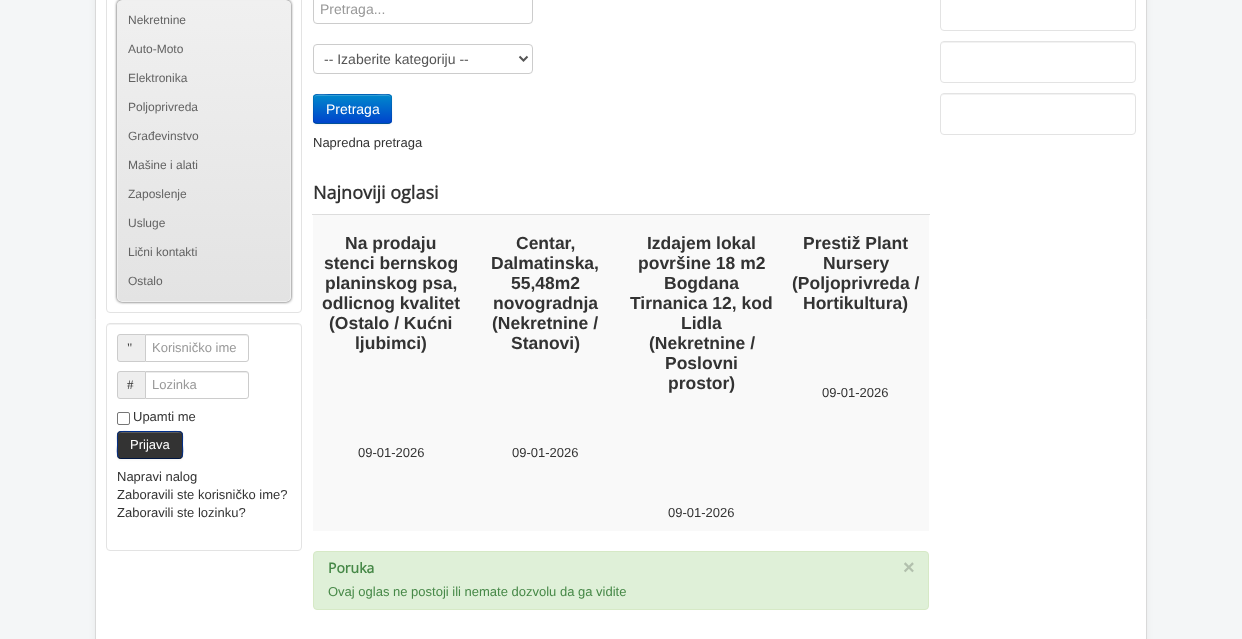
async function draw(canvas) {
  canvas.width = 1242;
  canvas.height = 639;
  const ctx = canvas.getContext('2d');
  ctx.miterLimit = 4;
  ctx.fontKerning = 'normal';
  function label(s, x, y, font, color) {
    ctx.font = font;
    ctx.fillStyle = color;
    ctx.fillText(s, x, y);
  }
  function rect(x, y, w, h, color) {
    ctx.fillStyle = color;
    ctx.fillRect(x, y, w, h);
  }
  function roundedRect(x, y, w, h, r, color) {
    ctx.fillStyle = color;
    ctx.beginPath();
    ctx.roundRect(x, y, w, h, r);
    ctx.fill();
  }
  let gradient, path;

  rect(0, 0, 1242, 639, '#f4f6f7');
  ctx.fillStyle = '#0000000d';
  ctx.filter = 'blur(3px)';
  ctx.beginPath();
  ctx.roundRect(95, -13, 1052, 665, 4);
  ctx.fill();
  ctx.filter = 'none';
  ctx.fillStyle = '#fff';
  ctx.beginPath();
  ctx.rect(95.5, -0.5, 1051, 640);
  ctx.fill();
  ctx.strokeStyle = '#d9d9d9';
  ctx.stroke();
  ctx.beginPath();
  ctx.roundRect(106.5, -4.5, 195, 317, 3.5);
  ctx.strokeStyle = '#e3e3e3';
  ctx.stroke();
  ctx.fillStyle = '#444';
  ctx.filter = 'blur(1.5px)';
  ctx.beginPath();
  ctx.roundRect(117, 0, 174, 302, 5);
  ctx.fill();
  ctx.filter = 'none';
  ctx.save();
  ctx.beginPath();
  ctx.roundRect(117, 0, 174, 302, 5);
  ctx.clip();
  gradient = ctx.createLinearGradient(204, 1, 204, 301);
  gradient.addColorStop(0, '#f0f0f0');
  gradient.addColorStop(1, '#e3e3e3');
  ctx.fillStyle = gradient;
  ctx.fillRect(117, 1, 174, 300);
  ctx.restore();
  ctx.beginPath();
  ctx.roundRect(117.5, 0.5, 173, 301, 4.5);
  ctx.strokeStyle = '#efefef';
  ctx.stroke();
  label('Nekretnine', 128, 24, '12px Liberation Sans', '#636363');
  label('Auto-Moto', 128, 53, '12px Liberation Sans', '#636363');
  label('Elektronika', 128, 82, '12px Liberation Sans', '#636363');
  label('Poljoprivreda', 128, 111, '12px Liberation Sans', '#636363');
  label('Građevinstvo', 128, 140, '12px Liberation Sans', '#636363');
  label('Mašine i alati', 128, 169, '12px Liberation Sans', '#636363');
  label('Zaposlenje', 128, 198, '12px Liberation Sans', '#636363');
  label('Usluge', 128, 227, '12px Liberation Sans', '#636363');
  label('Lični kontakti', 128, 256, '12px Liberation Sans', '#636363');
  label('Ostalo', 128, 285, '12px Liberation Sans', '#636363');
  ctx.fillStyle = '#f2f2f2';
  path = new Path2D('M110 325H298C300 325 301 326 301 328C301 326 300 324 298 324H110C108 324 107 326 107 328C107 326 108 325 110 325Z');
  ctx.fill(path);
  ctx.beginPath();
  ctx.roundRect(106.5, 323.5, 195, 227, 3.5);
  ctx.strokeStyle = '#e3e3e3';
  ctx.stroke();
  ctx.fillStyle = '#eee';
  ctx.beginPath();
  ctx.roundRect(117.5, 334.5, 28, 27, [2.5, 0, 0, 2.5]);
  ctx.fill();
  ctx.strokeStyle = '#ccc';
  ctx.stroke();
  label('"', 127, 352, '13px Liberation Serif', '#333');
  ctx.fillStyle = '#fff';
  ctx.beginPath();
  ctx.roundRect(145, 334, 104, 28, [0, 3, 3, 0]);
  ctx.fill();
  ctx.fillStyle = '#ececec';
  path = new Path2D('M146 336H246C247 336 248 337 248 338C248 337 248 335 246 335H146Z');
  ctx.fill(path);
  ctx.beginPath();
  ctx.roundRect(145.5, 334.5, 103, 27, [0, 2.5, 2.5, 0]);
  ctx.stroke();
  label('Korisničko ime', 152, 352, '13px Liberation Sans', '#999');
  ctx.fillStyle = '#eee';
  ctx.beginPath();
  ctx.roundRect(117.5, 371.5, 28, 27, [2.5, 0, 0, 2.5]);
  ctx.fill();
  ctx.stroke();
  label('#', 127, 389, '13px Liberation Serif', '#333');
  ctx.fillStyle = '#fff';
  ctx.beginPath();
  ctx.roundRect(145, 371, 104, 28, [0, 3, 3, 0]);
  ctx.fill();
  ctx.fillStyle = '#ececec';
  path = new Path2D('M146 373H246C247 373 248 374 248 375C248 374 248 372 246 372H146Z');
  ctx.fill(path);
  ctx.beginPath();
  ctx.roundRect(145.5, 371.5, 103, 27, [0, 2.5, 2.5, 0]);
  ctx.stroke();
  label('Lozinka', 152, 389, '13px Liberation Sans', '#999');
  ctx.beginPath();
  ctx.roundRect(117.5, 412.5, 12, 12, 1.5);
  ctx.strokeStyle = '#767676';
  ctx.stroke();
  label('Upamti me', 133, 421, '13px Liberation Sans', '#333');
  ctx.fillStyle = '#0000000d';
  ctx.filter = 'blur(1px)';
  ctx.beginPath();
  ctx.roundRect(117, 432, 66, 28, 4);
  ctx.fill();
  ctx.filter = 'none';
  roundedRect(117, 431, 66, 28, 4, '#333');
  ctx.fillStyle = '#5c5c5c';
  path = new Path2D('M121 433H179C181 433 182 434 182 436C182 430 174 432 169 432H131C126 432 118 430 118 436C118 434 119 433 121 433Z');
  ctx.fill(path);
  path = new Path2D('M181.5 457.5L179.5 458.5H120.5L118.5 457.5');
  ctx.strokeStyle = '#001641';
  ctx.stroke(path);
  path = new Path2D('M118.5 457.5C116.5 455 117.5 447.5 117.5 445C117.5 430 115.5 431.5 130.5 431.5H169.5C184.5 431.5 182.5 430 182.5 445C182.5 447.5 183.5 455 181.5 457.5');
  ctx.strokeStyle = '#002f8d';
  ctx.stroke(path);
  label('Prijava', 130, 449, '13px Liberation Sans', '#fff');
  label('Napravi nalog', 117, 481, '13px Liberation Sans', '#333');
  label('Zaboravili ste korisničko ime?', 117, 499, '13px Liberation Sans', '#333');
  label('Zaboravili ste lozinku?', 117, 517, '13px Liberation Sans', '#333');
  ctx.beginPath();
  ctx.roundRect(313.5, -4.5, 219, 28, 3.5);
  ctx.strokeStyle = '#ccc';
  ctx.stroke();
  label('Pretraga...', 320, 14, '14px Liberation Sans', '#999');
  ctx.beginPath();
  ctx.roundRect(313.5, 44.5, 219, 29, 3.5);
  ctx.stroke();
  path = new Path2D('M519.5 56.5L523.5 60.5L527.5 56.5');
  ctx.strokeStyle = '#555';
  ctx.lineWidth = 2;
  ctx.stroke(path);
  label('-- Izaberite kategoriju --', 324, 64, '14px Liberation Sans', '#555');
  ctx.fillStyle = '#0000000d';
  ctx.filter = 'blur(1px)';
  ctx.beginPath();
  ctx.roundRect(313, 95, 79, 30, 4);
  ctx.fill();
  ctx.filter = 'none';
  roundedRect(313, 94, 79, 30, 4, '#006dcc');
  ctx.save();
  ctx.beginPath();
  ctx.roundRect(313, 94, 79, 30, 4);
  ctx.clip();
  gradient = ctx.createLinearGradient(353, 95, 353, 123);
  gradient.addColorStop(0, '#08c');
  gradient.addColorStop(1, '#04c');
  ctx.fillStyle = gradient;
  ctx.fillRect(313, 95, 79, 28);
  ctx.restore();
  ctx.fillStyle = '#ffffff33';
  path = new Path2D('M317 96H388C390 96 391 97 391 99C391 92 380 95 376 95H329C325 95 314 92 314 99C314 97 315 96 317 96Z');
  ctx.fill(path);
  path = new Path2D('M390.5 122.5C390 123 389 123.5 388 123.5H317C316 123.5 315 123 314.5 122.5');
  ctx.strokeStyle = '#00000040';
  ctx.lineWidth = 1;
  ctx.stroke(path);
  path = new Path2D('M314.5 122.5C312.5 120.5 313.5 112 313.5 109C313.5 92 311 94.5 329 94.5H376C394 94.5 391.5 92 391.5 109C391.5 112 392.5 120.5 390.5 122.5');
  ctx.strokeStyle = '#0000001a';
  ctx.stroke(path);
  label('Pretraga', 326, 114, '14px Liberation Sans', '#fff');
  label('Napredna pretraga', 313, 147, '13px Liberation Sans', '#333');
  label('Najnoviji oglasi', 313, 199, 'bold 18px Open Sans', '#333');
  rect(313, 215, 616, 316, '#f9f9f9');
  label('Na prodaju', 345, 249, 'bold 17.5px Liberation Sans', '#333');
  label('stenci bernskog', 324, 269, 'bold 17.5px Liberation Sans', '#333');
  label('planinskog psa,', 325, 289, 'bold 17.5px Liberation Sans', '#333');
  label('odlicnog kvalitet', 322, 309, 'bold 17.5px Liberation Sans', '#333');
  label('(Ostalo / Kućni', 329, 329, 'bold 17.5px Liberation Sans', '#333');
  label('ljubimci)', 355, 349, 'bold 17.5px Liberation Sans', '#333');
  label('09-01-2026', 358, 457, '13px Liberation Sans', '#333');
  label('Centar,', 516, 249, 'bold 17.5px Liberation Sans', '#333');
  label('Dalmatinska,', 491, 269, 'bold 17.5px Liberation Sans', '#333');
  label('55,48m2', 511, 289, 'bold 17.5px Liberation Sans', '#333');
  label('novogradnja', 493, 309, 'bold 17.5px Liberation Sans', '#333');
  label('(Nekretnine /', 492, 329, 'bold 17.5px Liberation Sans', '#333');
  label('Stanovi)', 511, 349, 'bold 17.5px Liberation Sans', '#333');
  label('09-01-2026', 512, 457, '13px Liberation Sans', '#333');
  label('Izdajem lokal', 647, 249, 'bold 17.5px Liberation Sans', '#333');
  label('površine 18 m2', 638, 269, 'bold 17.5px Liberation Sans', '#333');
  label('Bogdana', 664, 289, 'bold 17.5px Liberation Sans', '#333');
  label('Tirnanica 12, kod', 630, 309, 'bold 17.5px Liberation Sans', '#333');
  label('Lidla', 681, 329, 'bold 17.5px Liberation Sans', '#333');
  label('(Nekretnine /', 649, 349, 'bold 17.5px Liberation Sans', '#333');
  label('Poslovni', 665, 369, 'bold 17.5px Liberation Sans', '#333');
  label('prostor)', 668, 389, 'bold 17.5px Liberation Sans', '#333');
  label('09-01-2026', 668, 517, '13px Liberation Sans', '#333');
  rect(312, 214, 618, 1, '#ddd');
  label('Prestiž Plant', 803, 249, 'bold 17.5px Liberation Sans', '#333');
  label('Nursery', 823, 269, 'bold 17.5px Liberation Sans', '#333');
  label('(Poljoprivreda /', 792, 289, 'bold 17.5px Liberation Sans', '#333');
  label('Hortikultura)', 803, 309, 'bold 17.5px Liberation Sans', '#333');
  label('09-01-2026', 822, 397, '13px Liberation Sans', '#333');
  ctx.fillStyle = '#dff0d8';
  ctx.beginPath();
  ctx.roundRect(313.5, 551.5, 615, 58, 3.5);
  ctx.fill();
  ctx.strokeStyle = '#d6e9c6';
  ctx.stroke();
  label('Poruka', 328, 573, 'bold 14px Open Sans', '#468847');
  label('×', 903, 574, 'bold 20px Liberation Sans', '#b2c0ad');
  label('Ovaj oglas ne postoji ili nemate dozvolu da ga vidite', 328, 596, '13px Liberation Sans', '#468847');
  ctx.beginPath();
  ctx.roundRect(940.5, -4.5, 195, 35, 3.5);
  ctx.strokeStyle = '#e3e3e3';
  ctx.stroke();
  ctx.fillStyle = '#f2f2f2';
  path = new Path2D('M944 43H1132C1134 43 1135 44 1135 46C1135 44 1134 42 1132 42H944C942 42 941 44 941 46C941 44 942 43 944 43Z');
  ctx.fill(path);
  ctx.beginPath();
  ctx.roundRect(940.5, 41.5, 195, 41, 3.5);
  ctx.stroke();
  path = new Path2D('M944 95H1132C1134 95 1135 96 1135 98C1135 96 1134 94 1132 94H944C942 94 941 96 941 98C941 96 942 95 944 95Z');
  ctx.fill(path);
  ctx.beginPath();
  ctx.roundRect(940.5, 93.5, 195, 41, 3.5);
  ctx.stroke();
}

draw(document.querySelector('canvas'));
